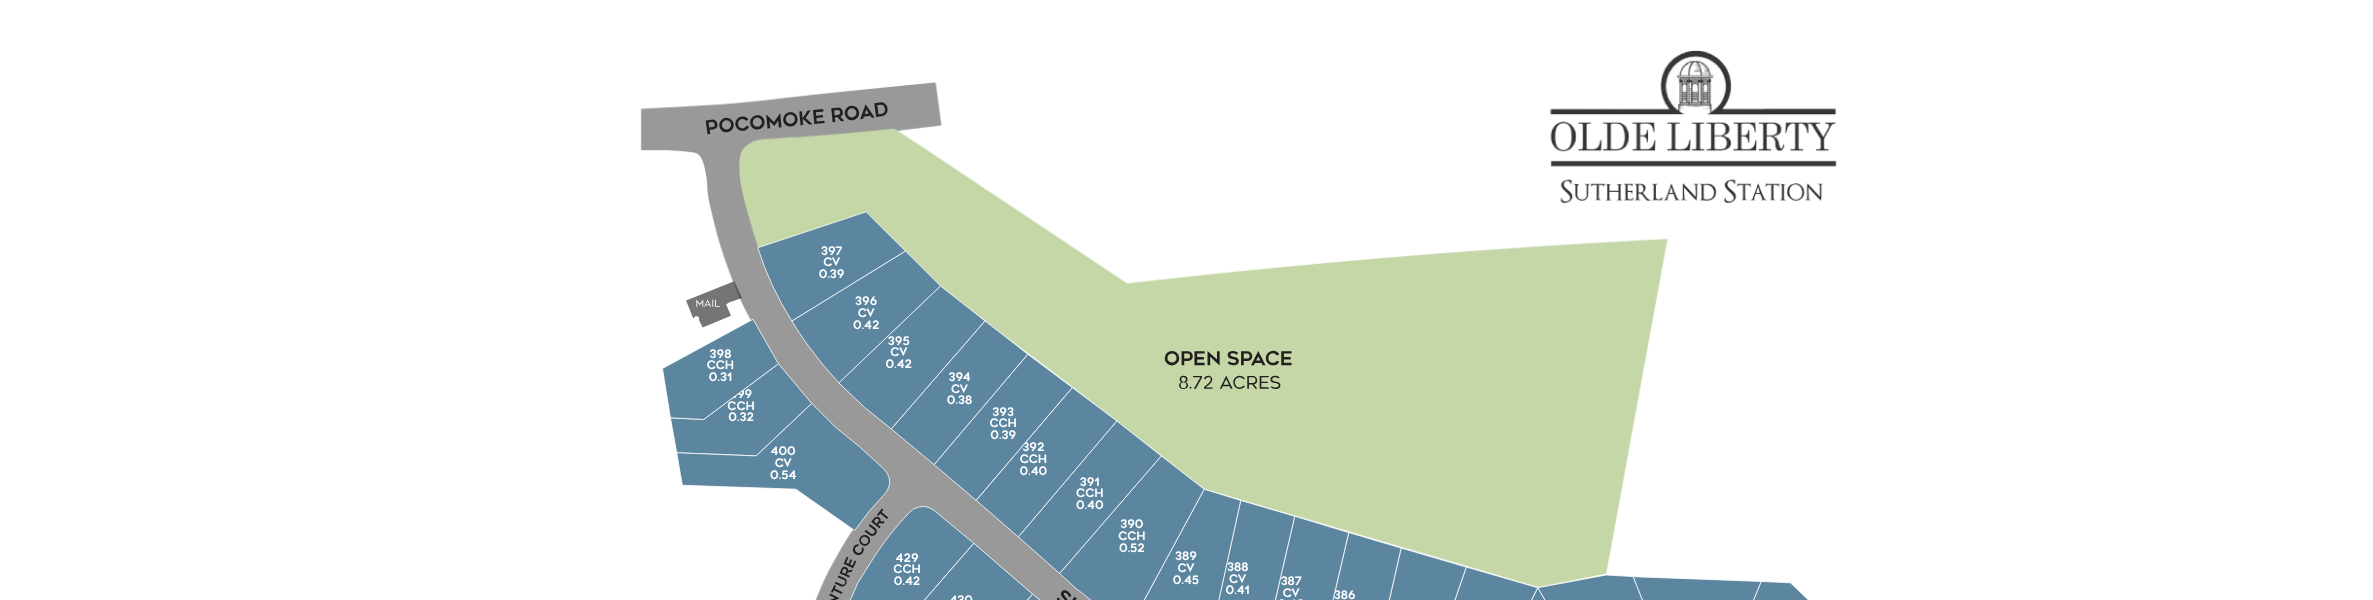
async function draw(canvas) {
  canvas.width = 2373;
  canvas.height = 600;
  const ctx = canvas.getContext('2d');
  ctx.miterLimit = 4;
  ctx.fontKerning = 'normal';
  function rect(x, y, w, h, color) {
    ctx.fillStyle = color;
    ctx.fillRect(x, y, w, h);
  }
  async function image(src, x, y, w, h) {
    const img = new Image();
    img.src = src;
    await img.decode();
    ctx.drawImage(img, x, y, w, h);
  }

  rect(0, 0, 2373, 600, '#fff');
  await image('assets/img1.png', 640, 50, 1197, 550);
}

draw(document.querySelector('canvas'));
